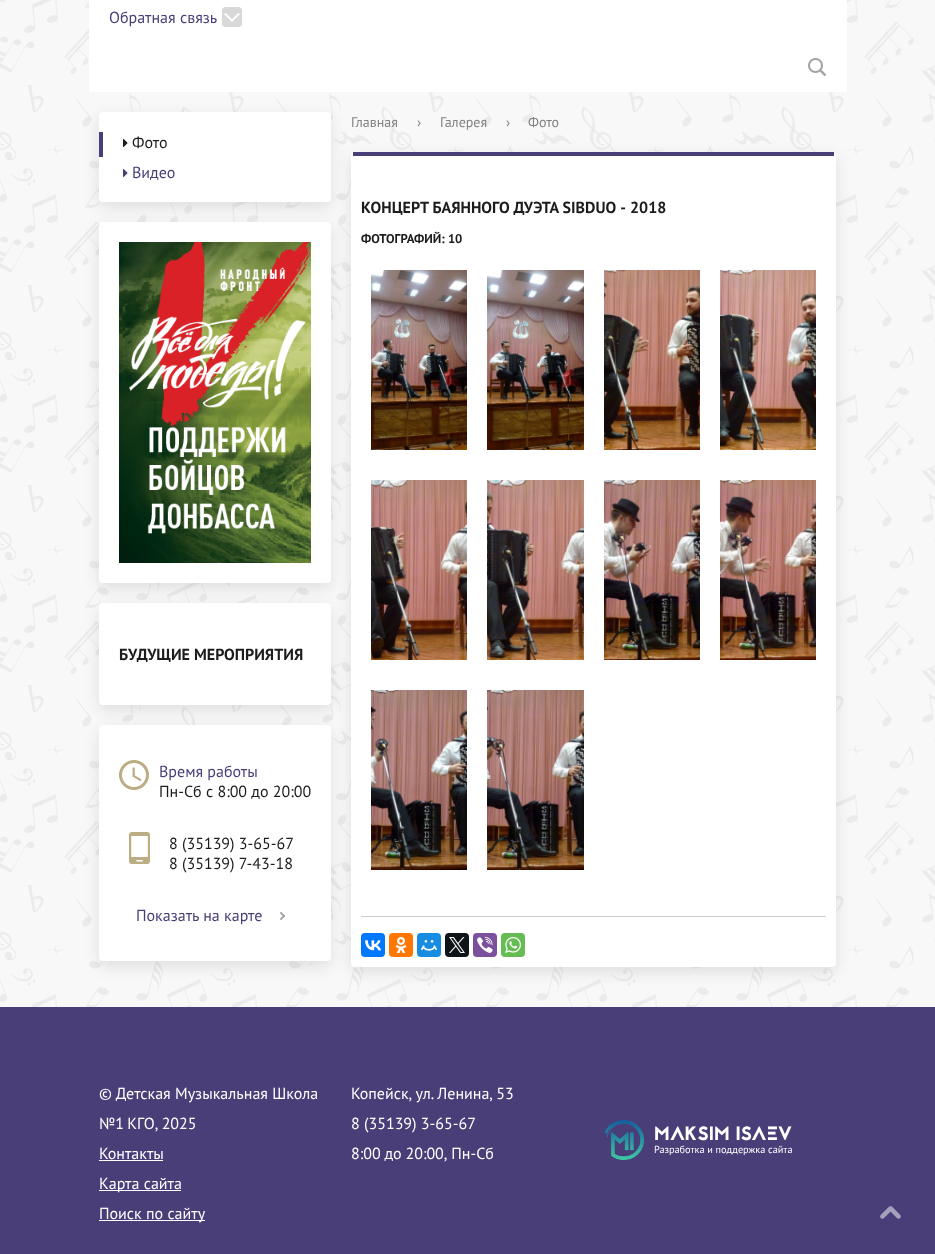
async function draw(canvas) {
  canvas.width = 935;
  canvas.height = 1254;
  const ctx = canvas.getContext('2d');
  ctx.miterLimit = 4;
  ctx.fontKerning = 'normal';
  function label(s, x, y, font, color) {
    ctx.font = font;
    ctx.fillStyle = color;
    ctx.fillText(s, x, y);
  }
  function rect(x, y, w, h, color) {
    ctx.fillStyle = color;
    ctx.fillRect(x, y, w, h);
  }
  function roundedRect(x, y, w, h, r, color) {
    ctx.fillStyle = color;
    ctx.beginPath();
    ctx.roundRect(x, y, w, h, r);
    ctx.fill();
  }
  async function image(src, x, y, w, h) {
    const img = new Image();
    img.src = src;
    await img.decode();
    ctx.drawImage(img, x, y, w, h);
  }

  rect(0, 0, 935, 1254, '#fff');
  await image('assets/img1.png', 0, 0, 935, 1007);
  rect(89, 0, 758, 92, '#fff');
  label('Обратная связь', 109, 23, '16px PT Sans', '#493e78');
  await image('assets/img2.png', 222, 7, 20, 20);
  await image('assets/img3.png', 808, 58, 18, 18);
  ctx.fillStyle = '#0000001a';
  ctx.filter = 'blur(7.5px)';
  ctx.beginPath();
  ctx.roundRect(99, 117, 232, 90, 4);
  ctx.fill();
  ctx.filter = 'none';
  roundedRect(99, 112, 232, 90, 4, '#fff');
  rect(99, 132, 4, 25, '#493e78');
  await image('assets/img4.png', 123, 139, 5, 8);
  label('Фото', 132, 148, '16px PT Sans', '#1c1c1c');
  await image('assets/img5.png', 123, 169, 5, 8);
  label('Видео', 132, 178, '16px PT Sans', '#493e78');
  ctx.fillStyle = '#0000001a';
  ctx.filter = 'blur(7.5px)';
  ctx.beginPath();
  ctx.roundRect(99, 227, 232, 361, 4);
  ctx.fill();
  ctx.filter = 'none';
  roundedRect(99, 222, 232, 361, 4, '#fff');
  await image('assets/img6.png', 119, 242, 192, 321);
  ctx.fillStyle = '#0000001a';
  ctx.filter = 'blur(7.5px)';
  ctx.beginPath();
  ctx.roundRect(99, 608, 232, 102, 4);
  ctx.fill();
  ctx.filter = 'none';
  roundedRect(99, 603, 232, 102, 4, '#fff');
  label('БУДУЩИЕ МЕРОПРИЯТИЯ', 119, 660, 'bold 16px PT Sans', '#1c1c1c');
  ctx.fillStyle = '#0000001a';
  ctx.filter = 'blur(7.5px)';
  ctx.beginPath();
  ctx.roundRect(99, 730, 232, 236, 4);
  ctx.fill();
  ctx.filter = 'none';
  roundedRect(99, 725, 232, 236, 4, '#fff');
  await image('assets/img7.png', 119, 760, 30, 30);
  label('Время работы', 159, 777, '16px PT Sans', '#493e78');
  label('Пн-Сб c 8:00 до 20:00', 159, 797, '16px PT Sans', '#1c1c1c');
  await image('assets/img8.png', 129, 832, 21, 32);
  label('8 (35139) 3-65-67', 169, 849, '16px PT Sans', '#1c1c1c');
  label('8 (35139) 7-43-18', 169, 869, '16px PT Sans', '#1c1c1c');
  label('Показать на карте', 136, 921, '16px PT Sans', '#493e78');
  await image('assets/img9.png', 280, 912, 5, 8);
  label('Главная', 351, 127, '14px PT Sans', '#828282');
  label('›', 417, 127, '14px PT Sans', '#828282');
  label('Галерея', 440, 127, '14px PT Sans', '#828282');
  label('›', 506, 127, '14px PT Sans', '#828282');
  label('Фото', 528, 127, '14px PT Sans', '#828282');
  ctx.fillStyle = '#0000001a';
  ctx.filter = 'blur(7.5px)';
  ctx.beginPath();
  ctx.roundRect(351, 157, 485, 815, 4);
  ctx.fill();
  ctx.filter = 'none';
  roundedRect(351, 152, 485, 815, 4, '#fff');
  rect(353, 152, 481, 4, '#493e78');
  label('КОНЦЕРТ БАЯННОГО ДУЭТА SIBDUO - 2018', 361, 213, 'bold 16px PT Sans', '#1c1c1c');
  label('ФОТОГРАФИЙ: 10', 361, 243, 'bold 12.75px PT Sans', '#1c1c1c');
  await image('assets/img10.png', 371, 270, 96, 180);
  await image('assets/img11.png', 487, 270, 97, 180);
  await image('assets/img12.png', 604, 270, 96, 180);
  await image('assets/img13.png', 720, 270, 96, 180);
  await image('assets/img14.png', 371, 480, 96, 180);
  await image('assets/img15.png', 487, 480, 97, 180);
  await image('assets/img16.png', 604, 480, 96, 180);
  await image('assets/img17.png', 720, 480, 96, 180);
  await image('assets/img18.png', 371, 690, 96, 180);
  await image('assets/img19.png', 487, 690, 97, 180);
  rect(361, 916, 465, 1, '#ccc');
  roundedRect(361, 933, 24, 24, 4, '#07f');
  await image('assets/img20.png', 365, 940, 16, 11);
  roundedRect(389, 933, 24, 24, 4, '#f70');
  await image('assets/img21.png', 395, 937, 12, 16);
  roundedRect(417, 933, 24, 24, 4, '#168de2');
  await image('assets/img22.png', 421, 940, 16, 11);
  roundedRect(445, 933, 24, 24, 4, '#0f1419');
  await image('assets/img23.png', 449, 937, 16, 16);
  roundedRect(473, 933, 24, 24, 4, '#7b519d');
  await image('assets/img24.png', 477, 937, 16, 16);
  roundedRect(501, 933, 24, 24, 4, '#65bc54');
  await image('assets/img25.png', 505, 937, 16, 16);
  rect(0, 1007, 935, 247, '#493e78');
  label('© Детская Музыкальная Школа', 99, 1099, '16px PT Sans', '#fff');
  ctx.wordSpacing = '-1px';
  label('№1 КГО, 2025', 99, 1129, '16px PT Sans', '#fff');
  ctx.wordSpacing = '0px';
  label('Контакты', 99, 1159, '16px PT Sans', '#fff');
  rect(99, 1160, 64, 1, '#fff');
  rect(99, 1190, 82, 1, '#fff');
  label('Карта сайта', 99, 1189, '16px PT Sans', '#fff');
  rect(99, 1220, 106, 1, '#fff');
  label('Поиск по сайту', 99, 1219, '16px PT Sans', '#fff');
  ctx.wordSpacing = '-1px';
  label('Копейск, ул. Ленина, 53', 351, 1099, '16px PT Sans', '#fff');
  ctx.wordSpacing = '0px';
  label('8 (35139) 3-65-67', 351, 1129, '16px PT Sans', '#fff');
  ctx.wordSpacing = '-0.5px';
  label('8:00 до 20:00, Пн-Сб', 351, 1159, '16px PT Sans', '#fff');
  await image('assets/img26.png', 604, 1120, 40, 40);
  ctx.wordSpacing = '0px';
  label('MAKSIM ISAEV', 654, 1140, '19.25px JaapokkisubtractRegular', '#fff');
  label('Разработка и поддержка сайта', 654, 1153, '10.25px PT Sans', '#fff');
  await image('assets/img27.png', 880, 1206, 21, 13);
}

draw(document.querySelector('canvas'));
